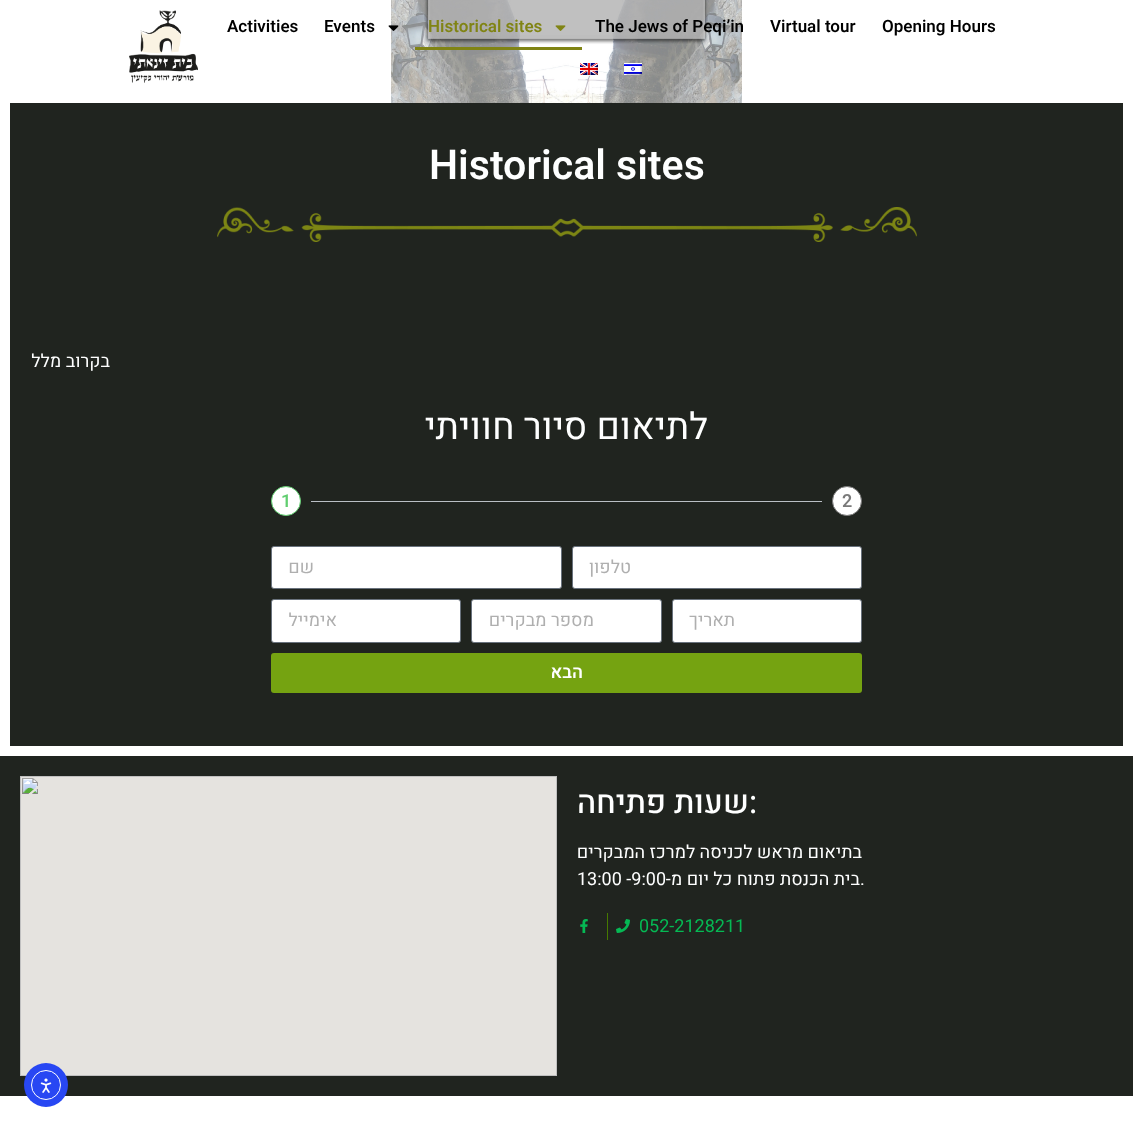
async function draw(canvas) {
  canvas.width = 1133;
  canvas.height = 1131;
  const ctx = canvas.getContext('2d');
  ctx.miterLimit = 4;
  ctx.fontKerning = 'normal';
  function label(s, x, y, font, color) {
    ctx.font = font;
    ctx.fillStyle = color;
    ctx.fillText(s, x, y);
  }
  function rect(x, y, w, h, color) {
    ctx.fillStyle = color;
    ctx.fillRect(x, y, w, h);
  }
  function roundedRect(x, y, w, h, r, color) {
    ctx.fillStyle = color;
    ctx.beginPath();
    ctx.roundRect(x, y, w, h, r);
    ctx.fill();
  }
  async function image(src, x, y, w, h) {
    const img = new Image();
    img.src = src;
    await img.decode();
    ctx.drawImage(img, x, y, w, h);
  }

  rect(0, 0, 1133, 1131, '#fff');
  await image('assets/img1.png', 391, 0, 351, 103);
  label('Opening Hours', 882, 32, '600 17px Heebo', '#000');
  label('Virtual tour', 770, 32, '600 17px Heebo', '#000');
  label('The Jews of Peqi’in', 595, 32, '600 17px Heebo', '#000');
  await image('assets/img2.png', 555, 25, 11, 6);
  label('Historical sites', 428, 32, '600 17px Heebo', '#808414');
  rect(415, 47, 167, 3, '#808414');
  await image('assets/img3.png', 388, 25, 11, 6);
  label('Events', 324, 32, '600 17px Heebo', '#000');
  label('Activities', 227, 32, '600 17px Heebo', '#000');
  await image('assets/img4.png', 624, 63, 18, 12);
  await image('assets/img5.png', 580, 63, 18, 12);
  await image('assets/img6.png', 129, 10, 69, 73);
  rect(10, 103, 1113, 643, '#20241f');
  label('Historical sites', 429, 179, '600 41px Heebo', '#feffff');
  await image('assets/img7.png', 217, 207, 700, 35);
  ctx.direction = 'rtl';
  label('בקרוב מלל', 110, 367, '18px Heebo', '#feffff');
  label('לתיאום סיור חוויתי', 708, 439, '37px Heebo', '#feffff');
  ctx.fillStyle = '#fff';
  ctx.beginPath();
  ctx.arc(847, 501, 14.5, 0, 2 * Math.PI);
  ctx.fill();
  ctx.strokeStyle = '#7a7a7a';
  ctx.stroke();
  ctx.direction = 'ltr';
  label('2', 842, 507, '600 18px Heebo', '#7a7a7a');
  rect(311, 501, 511, 1, '#babfc5');
  ctx.fillStyle = '#fff';
  ctx.beginPath();
  ctx.arc(286, 501, 14.5, 0, 2 * Math.PI);
  ctx.fill();
  ctx.strokeStyle = '#61ce70';
  ctx.stroke();
  label('1', 281, 507, '600 18px Heebo', '#61ce70');
  ctx.fillStyle = '#fff';
  ctx.beginPath();
  ctx.roundRect(572.5, 546.5, 289, 42, 2.5);
  ctx.fill();
  ctx.strokeStyle = '#69727d';
  ctx.stroke();
  ctx.direction = 'rtl';
  label('טלפון', 631, 573, '18px Heebo', '#afafaf');
  ctx.fillStyle = '#fff';
  ctx.beginPath();
  ctx.roundRect(271.5, 546.5, 290, 42, 2.5);
  ctx.fill();
  ctx.stroke();
  label('שם', 314, 573, '18px Heebo', '#afafaf');
  ctx.fillStyle = '#fff';
  ctx.beginPath();
  ctx.roundRect(672.5, 599.5, 189, 43, 2.5);
  ctx.fill();
  ctx.stroke();
  label('תאריך', 735, 626, '18px Heebo', '#afafaf');
  ctx.fillStyle = '#fff';
  ctx.beginPath();
  ctx.roundRect(471.5, 599.5, 190, 43, 2.5);
  ctx.fill();
  ctx.stroke();
  label('מספר מבקרים', 594, 626, '18px Heebo', '#afafaf');
  ctx.fillStyle = '#fff';
  ctx.beginPath();
  ctx.roundRect(271.5, 599.5, 189, 43, 2.5);
  ctx.fill();
  ctx.stroke();
  label('אימייל', 337, 626, '18px Heebo', '#afafaf');
  roundedRect(271, 653, 591, 40, 3, '#75a311');
  label('הבא', 583, 678, '600 18px Heebo', '#feffff');
  rect(0, 756, 1133, 340, '#20241f');
  ctx.direction = 'ltr';
  label(':', 749, 813, '500 32px Heebo', '#feffff');
  ctx.direction = 'rtl';
  label('שעות פתיחה', 749, 813, '500 32px Heebo', '#feffff');
  label('בתיאום מראש לכניסה למרכז המבקרים', 862, 858, '18px Heebo', '#feffff');
  ctx.direction = 'ltr';
  label('.', 860, 885, '18px Heebo', '#feffff');
  ctx.direction = 'rtl';
  label('בית הכנסת פתוח כל יום מ-', 860, 885, '18px Heebo', '#feffff');
  ctx.direction = 'ltr';
  label('13:00 -9:00', 577, 885, '18px Heebo', '#feffff');
  label('052-2128211', 639, 932, '18px Heebo', '#05b954');
  await image('assets/img8.png', 616, 919, 14, 14);
  rect(607, 913, 1, 27, '#467900');
  await image('assets/img9.png', 580, 919, 8, 14);
  await image('assets/img10.png', 20, 776, 537, 300);
  ctx.fillStyle = '#2847f3';
  ctx.beginPath();
  ctx.arc(46, 1085, 22, 0, 2 * Math.PI);
  ctx.fill();
  ctx.beginPath();
  ctx.arc(46, 1085, 14.5, 0, 2 * Math.PI);
  ctx.strokeStyle = '#fff';
  ctx.stroke();
  await image('assets/img11.png', 40, 1078, 12, 15);
}

draw(document.querySelector('canvas'));
